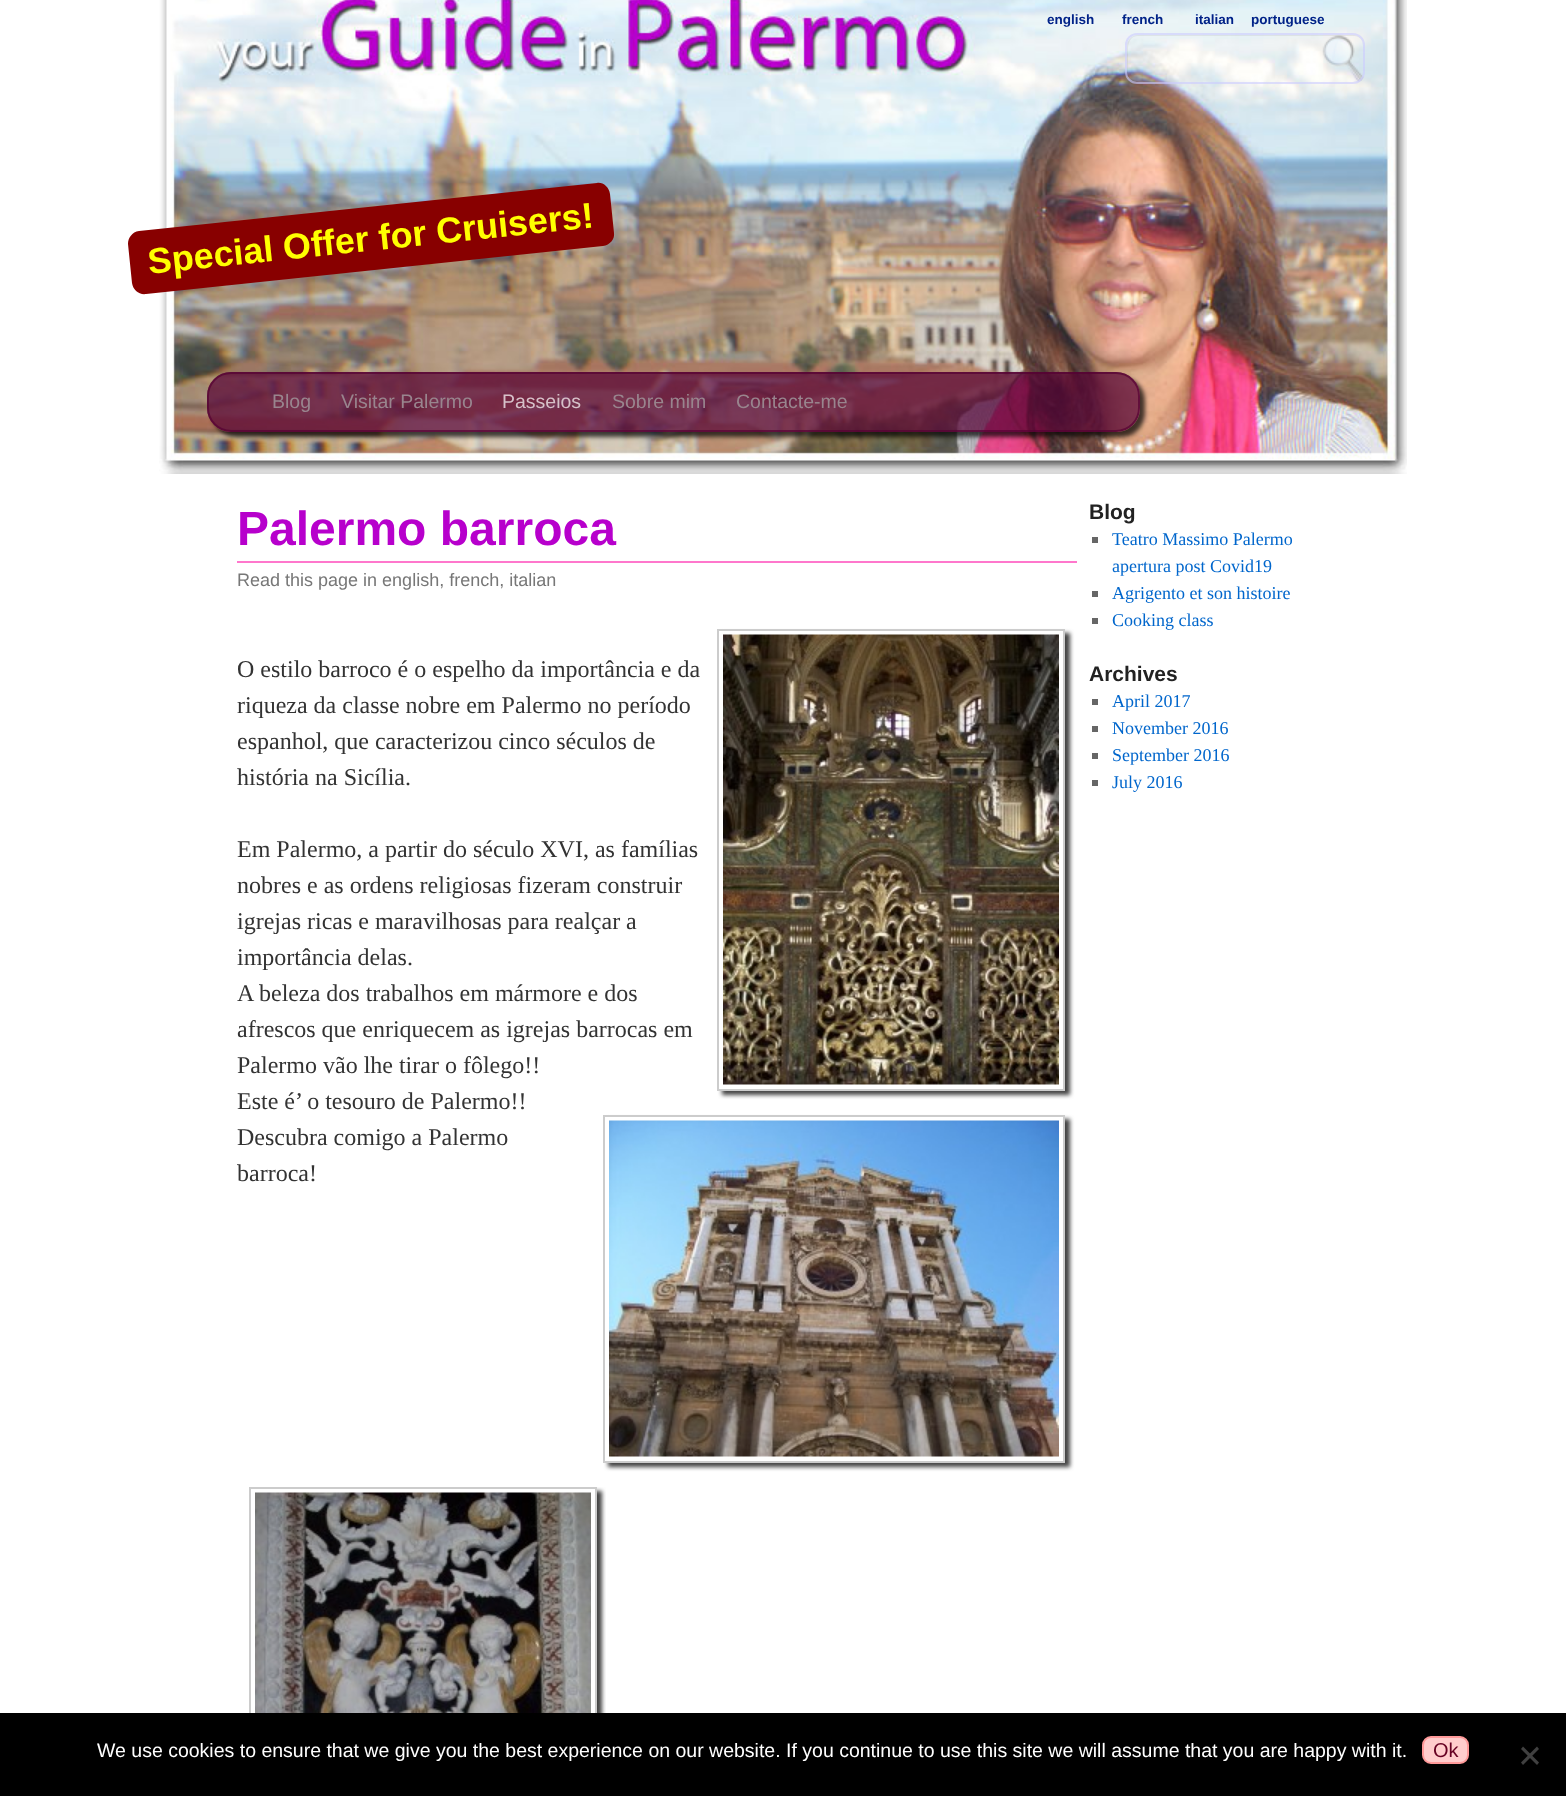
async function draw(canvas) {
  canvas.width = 1566;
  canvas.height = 1796;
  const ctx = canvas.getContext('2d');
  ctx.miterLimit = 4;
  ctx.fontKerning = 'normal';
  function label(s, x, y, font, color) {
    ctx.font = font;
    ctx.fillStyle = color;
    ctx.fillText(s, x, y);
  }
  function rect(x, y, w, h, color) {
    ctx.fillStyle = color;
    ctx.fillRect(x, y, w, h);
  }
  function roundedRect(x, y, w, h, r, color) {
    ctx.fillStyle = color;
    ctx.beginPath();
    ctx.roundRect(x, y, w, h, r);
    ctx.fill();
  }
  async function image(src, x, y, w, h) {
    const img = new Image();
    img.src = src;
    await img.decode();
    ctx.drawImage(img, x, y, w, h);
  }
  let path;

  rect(0, 0, 1566, 1796, '#fff');
  await image('assets/img2.png', 159, 0, 1248, 474);
  label('english', 1047, 24, 'bold 13.5px Liberation Sans', '#028');
  label('french', 1122, 24, 'bold 13.5px Liberation Sans', '#028');
  label('italian', 1195, 24, 'bold 13.5px Liberation Sans', '#028');
  label('portuguese', 1251, 24, 'bold 13.5px Liberation Sans', '#028');
  await image('assets/img1.png', 1322, 34, 42, 48);
  ctx.fillStyle = '#0000000f';
  path = new Path2D('M1138 36H1354C1357 36 1359 37 1361 39C1359 36 1356 35 1353 35H1138C1132 35 1127 40 1127 46V72C1127 75 1128 78 1130 79C1126 75 1128 65 1128 60C1128 52 1126 36 1138 36Z');
  ctx.fill(path);
  ctx.beginPath();
  ctx.roundRect(1126, 34, 238, 49, 11);
  ctx.strokeStyle = '#ccccff99';
  ctx.lineWidth = 2;
  ctx.stroke();
  ctx.fillStyle = '#800';
  path = new Path2D('M139 231L597 183C603 182 609 187 610 194L614 233C615 239 610 245 603 246L146 294C139 295 133 290 132 283L128 244C128 238 132 232 139 231Z');
  ctx.fill(path);
  ctx.font = 'bold 36px Liberation Sans';
  ctx.fillStyle = '#ff0';
  ctx.save();
  ctx.translate(149, 274);
  ctx.rotate(-6 * Math.PI / 180);
  ctx.fillText('Special Offer for Cruisers!', 0, 0);
  ctx.restore();
  ctx.save();
  path = new Path2D('M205 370H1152V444H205ZM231 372H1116C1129.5 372 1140 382.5 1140 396V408C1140 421.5 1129.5 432 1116 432H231C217.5 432 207 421.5 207 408V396C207 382.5 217.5 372 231 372Z');
  ctx.clip(path, 'evenodd');
  ctx.fillStyle = '#000000b3';
  ctx.filter = 'blur(2px)';
  ctx.beginPath();
  ctx.roundRect(212, 377, 933, 60, 24);
  ctx.fill();
  ctx.filter = 'none';
  ctx.restore();
  roundedRect(207, 372, 933, 60, 24, '#550033b3');
  ctx.beginPath();
  ctx.roundRect(208, 373, 931, 58, 23);
  ctx.strokeStyle = '#550033b3';
  ctx.stroke();
  label('Blog', 272, 408, '19.5px Liberation Sans', '#99858e');
  label('Visitar Palermo', 341, 408, '19.5px Liberation Sans', '#99858e');
  label('Passeios', 502, 408, '19.5px Liberation Sans', '#d6c1c9');
  label('Sobre mim', 612, 408, '19.5px Liberation Sans', '#99858e');
  label('Contacte-me', 736, 408, '19.5px Liberation Sans', '#99858e');
  rect(237, 561, 840, 2, '#f7c');
  label('Palermo barroca', 237, 545, 'bold 48px Liberation Sans', '#b700cc');
  label('Read this page in english, french, italian', 237, 586, '18px Liberation Sans', '#777');
  label('O estilo barroco é o espelho da importância e da', 237, 677, '24px Liberation Serif', '#333');
  ctx.save();
  path = new Path2D('M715 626H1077V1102H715ZM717 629H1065V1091H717Z');
  ctx.clip(path, 'evenodd');
  ctx.fillStyle = '#444';
  ctx.filter = 'blur(2px)';
  ctx.beginPath();
  ctx.rect(722, 633, 348, 462);
  ctx.fill();
  ctx.filter = 'none';
  ctx.restore();
  ctx.strokeStyle = '#ccc';
  ctx.strokeRect(718, 630, 346, 460);
  await image('assets/img3.png', 723, 634, 336, 451);
  label('riqueza da classe nobre em Palermo no período', 237, 713, '24px Liberation Serif', '#333');
  label('espanhol, que caracterizou cinco séculos de', 237, 749, '24px Liberation Serif', '#333');
  label('história na Sicília.', 237, 785, '24px Liberation Serif', '#333');
  label('Em Palermo, a partir do século XVI, as famílias', 237, 857, '24px Liberation Serif', '#333');
  label('nobres e as ordens religiosas fizeram construir', 237, 893, '24px Liberation Serif', '#333');
  label('igrejas ricas e maravilhosas para realçar a', 237, 929, '24px Liberation Serif', '#333');
  label('importância delas.', 237, 965, '24px Liberation Serif', '#333');
  label('A beleza dos trabalhos em mármore e dos', 237, 1001, '24px Liberation Serif', '#333');
  label('afrescos que enriquecem as igrejas barrocas em', 237, 1037, '24px Liberation Serif', '#333');
  label('Palermo vão lhe tirar o fôlego!!', 237, 1073, '24px Liberation Serif', '#333');
  label('Este é’ o tesouro de Palermo!!', 237, 1109, '24px Liberation Serif', '#333');
  label('Descubra comigo a Palermo', 237, 1145, '24px Liberation Serif', '#333');
  ctx.save();
  path = new Path2D('M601 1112H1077V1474H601ZM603 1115H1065V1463H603Z');
  ctx.clip(path, 'evenodd');
  ctx.fillStyle = '#444';
  ctx.filter = 'blur(2px)';
  ctx.beginPath();
  ctx.rect(608, 1119, 462, 348);
  ctx.fill();
  ctx.filter = 'none';
  ctx.restore();
  ctx.strokeRect(604, 1116, 460, 346);
  await image('assets/img4.png', 609, 1120, 450, 337);
  label('barroca!', 237, 1181, '24px Liberation Serif', '#333');
  ctx.save();
  ctx.beginPath();
  ctx.rect(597, 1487, 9, 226);
  ctx.clip();
  ctx.fillStyle = '#444';
  ctx.filter = 'blur(2px)';
  ctx.beginPath();
  ctx.rect(254, 1491, 348, 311);
  ctx.fill();
  ctx.filter = 'none';
  ctx.restore();
  ctx.strokeRect(250, 1488, 346, 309);
  await image('assets/img5.png', 255, 1492, 336, 221);
  label('Blog', 1089, 519, 'bold 21px Liberation Sans', '#222');
  rect(1092, 537, 6, 6, '#666');
  label('Teatro Massimo Palermo', 1112, 545, '18px Liberation Serif', '#06c');
  label('apertura post Covid19', 1112, 572, '18px Liberation Serif', '#06c');
  rect(1092, 591, 6, 6, '#666');
  label('Agrigento et son histoire', 1112, 599, '18px Liberation Serif', '#06c');
  rect(1092, 618, 6, 6, '#666');
  label('Cooking class', 1112, 626, '18px Liberation Serif', '#06c');
  label('Archives', 1089, 681, 'bold 21px Liberation Sans', '#222');
  rect(1092, 699, 6, 6, '#666');
  label('April 2017', 1112, 707, '18px Liberation Serif', '#06c');
  rect(1092, 726, 6, 6, '#666');
  label('November 2016', 1112, 734, '18px Liberation Serif', '#06c');
  rect(1092, 753, 6, 6, '#666');
  label('September 2016', 1112, 761, '18px Liberation Serif', '#06c');
  rect(1092, 780, 6, 6, '#666');
  label('July 2016', 1112, 788, '18px Liberation Serif', '#06c');
  rect(0, 1713, 1566, 83, '#000');
  label('We use cookies to ensure that we give you the best experience on our website. If you continue to use this site we will assume that you are happy with it.', 97, 1757, '19.5px Liberation Sans', '#fff');
  ctx.fillStyle = '#fcc';
  ctx.beginPath();
  ctx.roundRect(1423, 1737, 45, 26, 8);
  ctx.fill();
  ctx.strokeStyle = '#f99';
  ctx.stroke();
  label('Ok', 1433, 1757, '20px Liberation Sans', '#602');
  ctx.fillStyle = '#404040';
  path = new Path2D('M1537 1746.5L1539 1749L1523 1765L1521 1762.5Z');
  ctx.fill(path);
  path = new Path2D('M1521 1749L1523 1746.5L1539 1762.5L1537 1765Z');
  ctx.fill(path);
}

draw(document.querySelector('canvas'));
